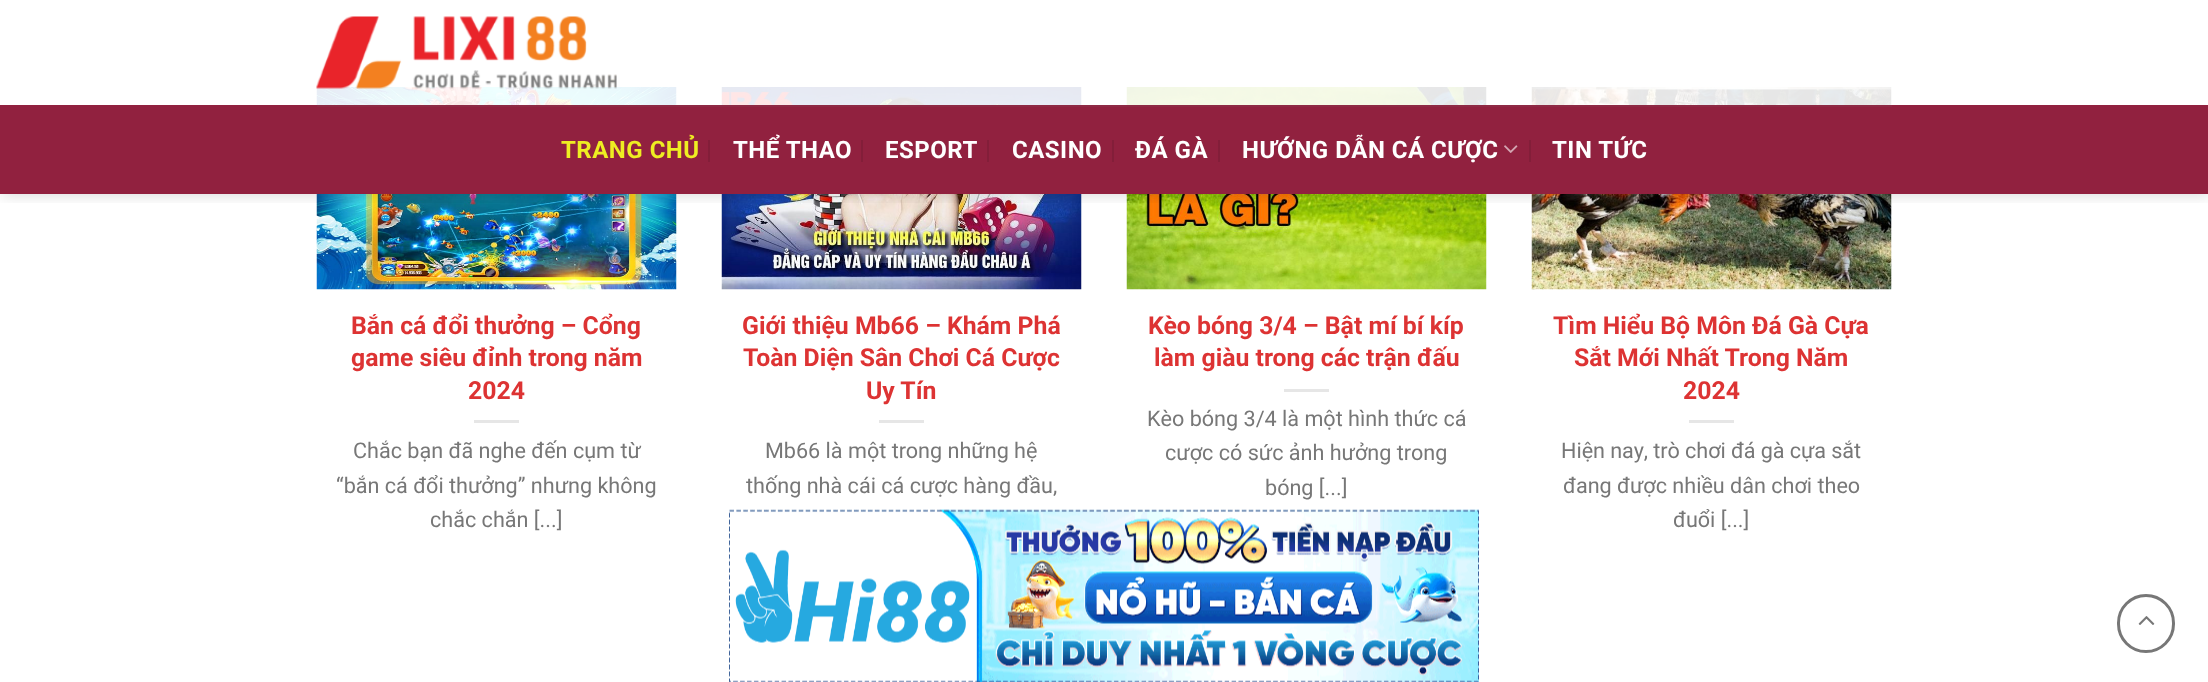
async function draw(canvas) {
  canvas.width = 2208;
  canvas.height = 682;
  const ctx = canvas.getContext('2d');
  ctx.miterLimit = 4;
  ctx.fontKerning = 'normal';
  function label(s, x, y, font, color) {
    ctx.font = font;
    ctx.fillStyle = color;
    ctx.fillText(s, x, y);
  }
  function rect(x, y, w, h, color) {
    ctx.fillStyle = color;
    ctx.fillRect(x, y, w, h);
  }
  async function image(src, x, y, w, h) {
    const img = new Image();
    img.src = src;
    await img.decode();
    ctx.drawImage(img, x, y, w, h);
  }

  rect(0, 0, 2208, 682, '#fff');
  await image('assets/img3.png', 316, 87, 361, 203);
  await image('assets/img4.png', 721, 87, 361, 203);
  await image('assets/img5.png', 1126, 87, 361, 203);
  await image('assets/img6.png', 1531, 87, 361, 203);
  ctx.save();
  ctx.beginPath();
  ctx.rect(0, 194, 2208, 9);
  ctx.clip();
  ctx.fillStyle = '#00000026';
  ctx.filter = 'blur(7.5px)';
  ctx.beginPath();
  ctx.rect(2, 2, 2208, 193);
  ctx.fill();
  ctx.filter = 'none';
  ctx.restore();
  rect(316, 87, 1576, 18, '#ffffffe6');
  await image('assets/img1.png', 316, 16, 301, 73);
  rect(0, 105, 2208, 89, '#91213f');
  rect(317, 105, 1575, 2, '#8e2a45');
  ctx.letterSpacing = '0.5px';
  label('TRANG CHỦ', 561, 158, 'bold 24px Roboto', '#ee2');
  rect(708, 140, 2, 22, '#831e39');
  label('THỂ THAO', 733, 158, 'bold 24px Roboto', '#fff');
  rect(861, 140, 2, 22, '#831e39');
  label('ESPORT', 885, 158, 'bold 24px Roboto', '#fff');
  rect(987, 140, 2, 22, '#831e39');
  label('CASINO', 1012, 158, 'bold 24px Roboto', '#fff');
  rect(1112, 140, 2, 22, '#831e39');
  label('ĐÁ GÀ', 1135, 158, 'bold 24px Roboto', '#fff');
  rect(1218, 140, 2, 22, '#831e39');
  label('HƯỚNG DẪN CÁ CƯỢC', 1242, 158, 'bold 24px Roboto', '#fff');
  await image('assets/img2.png', 1504, 145, 14, 8);
  rect(1529, 140, 2, 22, '#831e39');
  label('TIN TỨC', 1552, 158, 'bold 24px Roboto', '#fff');
  ctx.letterSpacing = '0px';
  label('Bắn cá đổi thưởng – Cổng', 351, 334, 'bold 24.8px Roboto', '#d33');
  label('game siêu đỉnh trong năm', 351, 366, 'bold 24.8px Roboto', '#d33');
  label('2024', 468, 399, 'bold 24.8px Roboto', '#d33');
  rect(474, 420, 45, 3, '#e6e6e6');
  label('Chắc bạn đã nghe đến cụm từ', 353, 458, '21.6px Roboto', '#777');
  label('“bắn cá đổi thưởng” nhưng không', 336, 493, '21.6px Roboto', '#777');
  label('chắc chắn [...]', 430, 527, '21.6px Roboto', '#777');
  label('Giới thiệu Mb66 – Khám Phá', 742, 334, 'bold 24.8px Roboto', '#d33');
  label('Toàn Diện Sân Chơi Cá Cược', 743, 366, 'bold 24.8px Roboto', '#d33');
  label('Uy Tín', 866, 399, 'bold 24.8px Roboto', '#d33');
  rect(879, 420, 45, 3, '#e6e6e6');
  label('Mb66 là một trong những hệ', 765, 458, '21.6px Roboto', '#777');
  label('thống nhà cái cá cược hàng đầu,', 746, 493, '21.6px Roboto', '#777');
  label('Kèo bóng 3/4 – Bật mí bí kíp', 1148, 334, 'bold 24.8px Roboto', '#d33');
  label('làm giàu trong các trận đấu', 1154, 366, 'bold 24.8px Roboto', '#d33');
  rect(1284, 389, 45, 3, '#e6e6e6');
  label('Kèo bóng 3/4 là một hình thức cá', 1147, 426, '21.6px Roboto', '#777');
  label('cược có sức ảnh hưởng trong', 1165, 460, '21.6px Roboto', '#777');
  label('bóng [...]', 1265, 495, '21.6px Roboto', '#777');
  label('Tìm Hiểu Bộ Môn Đá Gà Cựa', 1553, 334, 'bold 24.8px Roboto', '#d33');
  label('Sắt Mới Nhất Trong Năm', 1574, 366, 'bold 24.8px Roboto', '#d33');
  label('2024', 1683, 399, 'bold 24.8px Roboto', '#d33');
  rect(1689, 420, 45, 3, '#e6e6e6');
  ctx.wordSpacing = '-0.25px';
  label('Hiện nay, trò chơi đá gà cựa sắt', 1561, 458, '21.6px Roboto', '#777');
  ctx.wordSpacing = '0px';
  label('đang được nhiều dân chơi theo', 1563, 493, '21.6px Roboto', '#777');
  label('đuổi [...]', 1673, 527, '21.6px Roboto', '#777');
  await image('assets/img7.png', 729, 509, 750, 173);
  ctx.beginPath();
  ctx.roundRect(2118.5, 595.5, 55, 56, 27.5);
  ctx.strokeStyle = '#777';
  ctx.lineWidth = 3;
  ctx.stroke();
  await image('assets/img8.png', 2138, 616, 17, 9);
}

draw(document.querySelector('canvas'));
